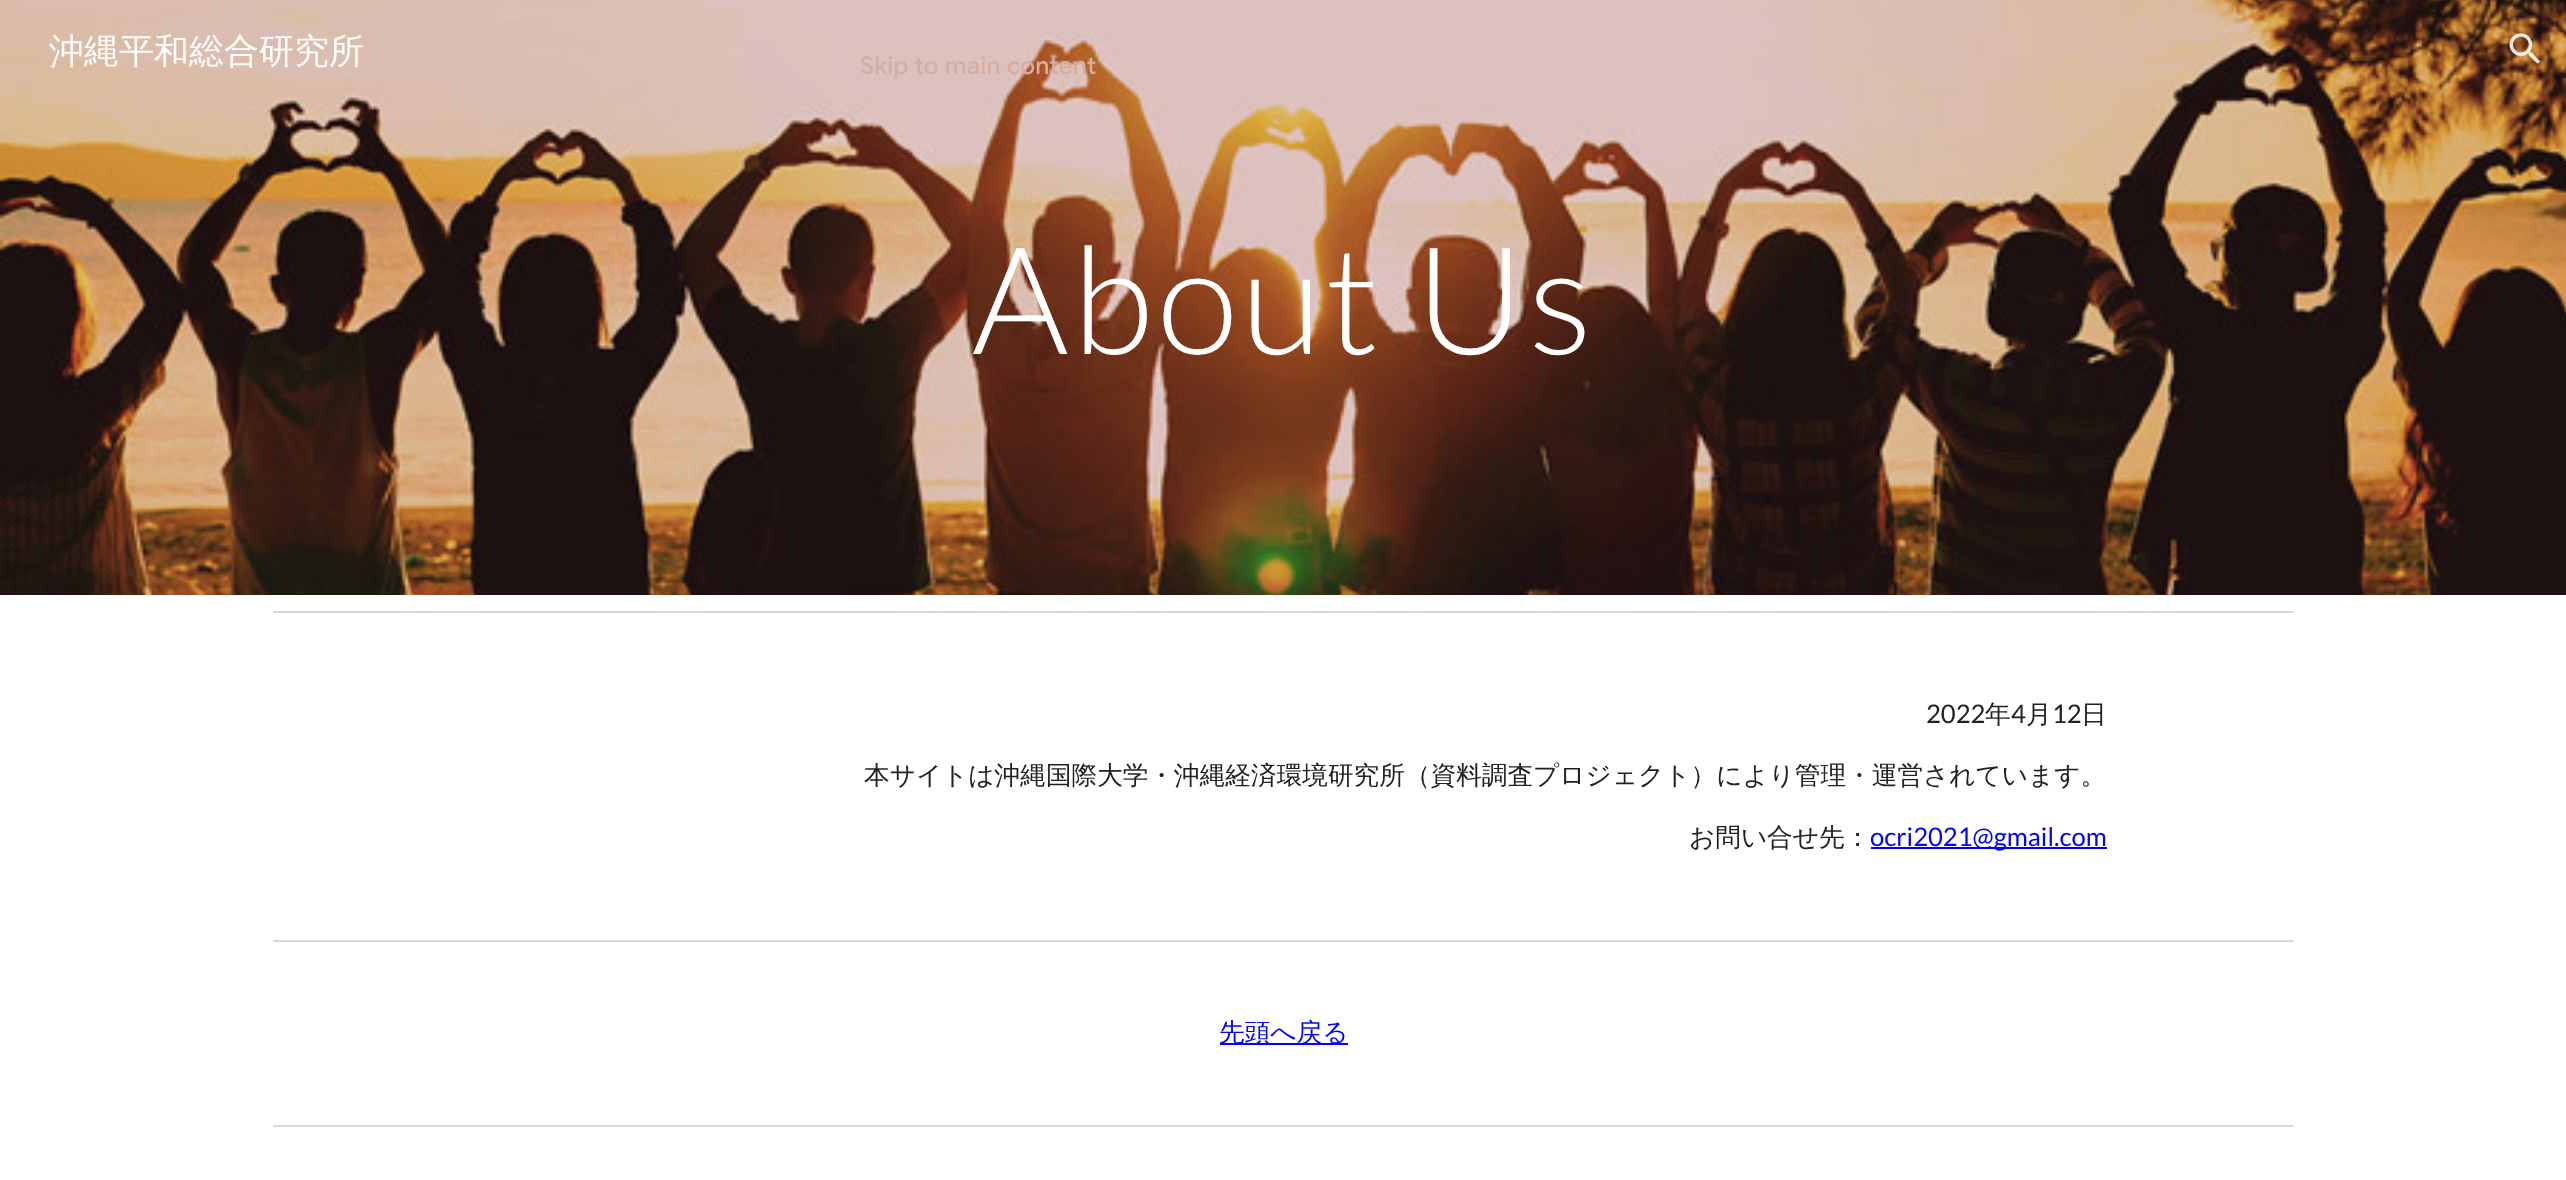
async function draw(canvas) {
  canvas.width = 2566;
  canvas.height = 1180;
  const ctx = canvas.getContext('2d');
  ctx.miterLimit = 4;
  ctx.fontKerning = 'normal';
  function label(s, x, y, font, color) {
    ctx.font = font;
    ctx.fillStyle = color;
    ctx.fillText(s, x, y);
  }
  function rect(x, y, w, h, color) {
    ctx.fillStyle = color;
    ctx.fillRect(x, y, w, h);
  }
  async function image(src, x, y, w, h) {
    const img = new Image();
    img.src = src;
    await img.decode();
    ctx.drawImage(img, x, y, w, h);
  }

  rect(0, 0, 2566, 1180, '#fff');
  await image('assets/img2.png', 0, 0, 2566, 595);
  label('沖縄平和総合研究所', 49, 63, '500 35px WenQuanYi Zen Hei', '#fff');
  await image('assets/img1.png', 2509, 33, 31, 31);
  ctx.letterSpacing = '3.5px';
  label('About Us', 972, 354, '300 149.5px Lato', '#fff');
  rect(273, 611, 2021, 2, '#d9d9d9');
  ctx.letterSpacing = '0px';
  label('2022', 1926, 723, '25.65px Lato', '#212121');
  label('年', 1985, 723, '500 25.65px WenQuanYi Zen Hei', '#212121');
  label('4', 2011, 723, '25.65px Lato', '#212121');
  label('月', 2026, 723, '500 25.65px WenQuanYi Zen Hei', '#212121');
  label('12', 2052, 723, '25.65px Lato', '#212121');
  label('日', 2081, 723, '500 25.65px WenQuanYi Zen Hei', '#212121');
  label('本サイトは沖縄国際大学・沖縄経済環境研究所（資料調査プロジェクト）により管理・運営されています。', 864, 784, '500 25.65px WenQuanYi Zen Hei', '#212121');
  label('お問い合せ先：', 1689, 846, '500 25.65px WenQuanYi Zen Hei', '#212121');
  rect(1871, 847, 236, 2, '#00f');
  label('ocri2021@gmail.com', 1870, 846, '25.65px Lato', '#00f');
  rect(273, 940, 2021, 2, '#d9d9d9');
  rect(1220, 1043, 128, 2, '#00f');
  label('先頭へ戻る', 1219, 1041, '500 25.65px WenQuanYi Zen Hei', '#00f');
  rect(273, 1125, 2021, 2, '#d9d9d9');
  ctx.letterSpacing = '0.25px';
  label('Skip to main content', 860, 74, '500 24.5px Google Sans', '#d4aea2');
}

draw(document.querySelector('canvas'));
